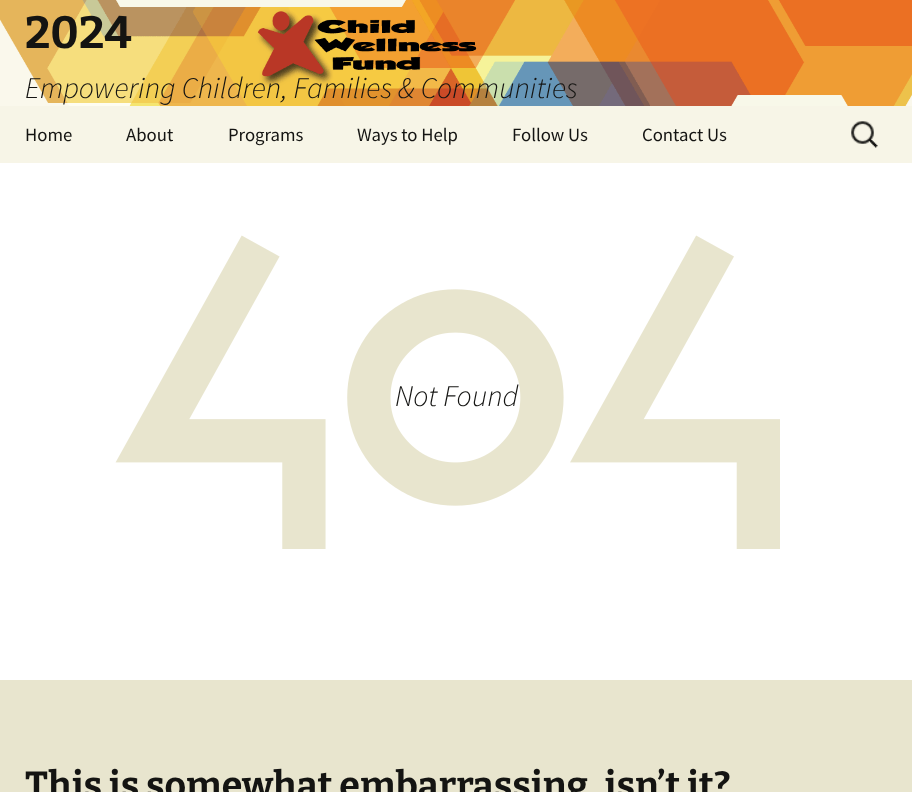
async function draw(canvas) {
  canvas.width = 912;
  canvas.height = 792;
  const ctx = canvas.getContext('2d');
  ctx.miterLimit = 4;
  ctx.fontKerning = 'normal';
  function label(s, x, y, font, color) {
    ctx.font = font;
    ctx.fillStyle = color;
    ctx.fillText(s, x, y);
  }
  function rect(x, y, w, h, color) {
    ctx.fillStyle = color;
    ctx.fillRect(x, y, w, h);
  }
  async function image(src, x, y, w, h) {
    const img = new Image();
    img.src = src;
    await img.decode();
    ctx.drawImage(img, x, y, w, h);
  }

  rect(0, 0, 912, 792, '#fff');
  await image('assets/img1.png', 0, 0, 912, 106);
  label('2024', 25, 48, '100 45px Bitter', '#141412');
  label('Empowering Children, Families & Communities', 25, 98, 'italic 300 30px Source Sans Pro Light', '#141412');
  rect(0, 106, 912, 57, '#f7f5e7');
  label('Home', 25, 141, '18.75px Source Sans Pro', '#141412');
  label('About', 126, 141, '18.75px Source Sans Pro', '#141412');
  label('Programs', 228, 141, '18.75px Source Sans Pro', '#141412');
  label('Ways to Help', 357, 141, '18.75px Source Sans Pro', '#141412');
  label('Follow Us', 512, 141, '18.75px Source Sans Pro', '#141412');
  label('Contact Us', 642, 141, '18.75px Source Sans Pro', '#141412');
  await image('assets/img2.png', 851, 121, 27, 27);
  label('Not Found', 395, 406, 'italic 300 30px Source Sans Pro Light', '#141412');
  await image('assets/img3.png', 115, 235, 665, 314);
  rect(0, 680, 912, 112, '#e8e5ce');
  label('This is somewhat embarrassing, isn’t it?', 25, 798, '100 37.5px Bitter', '#141412');
}

draw(document.querySelector('canvas'));
